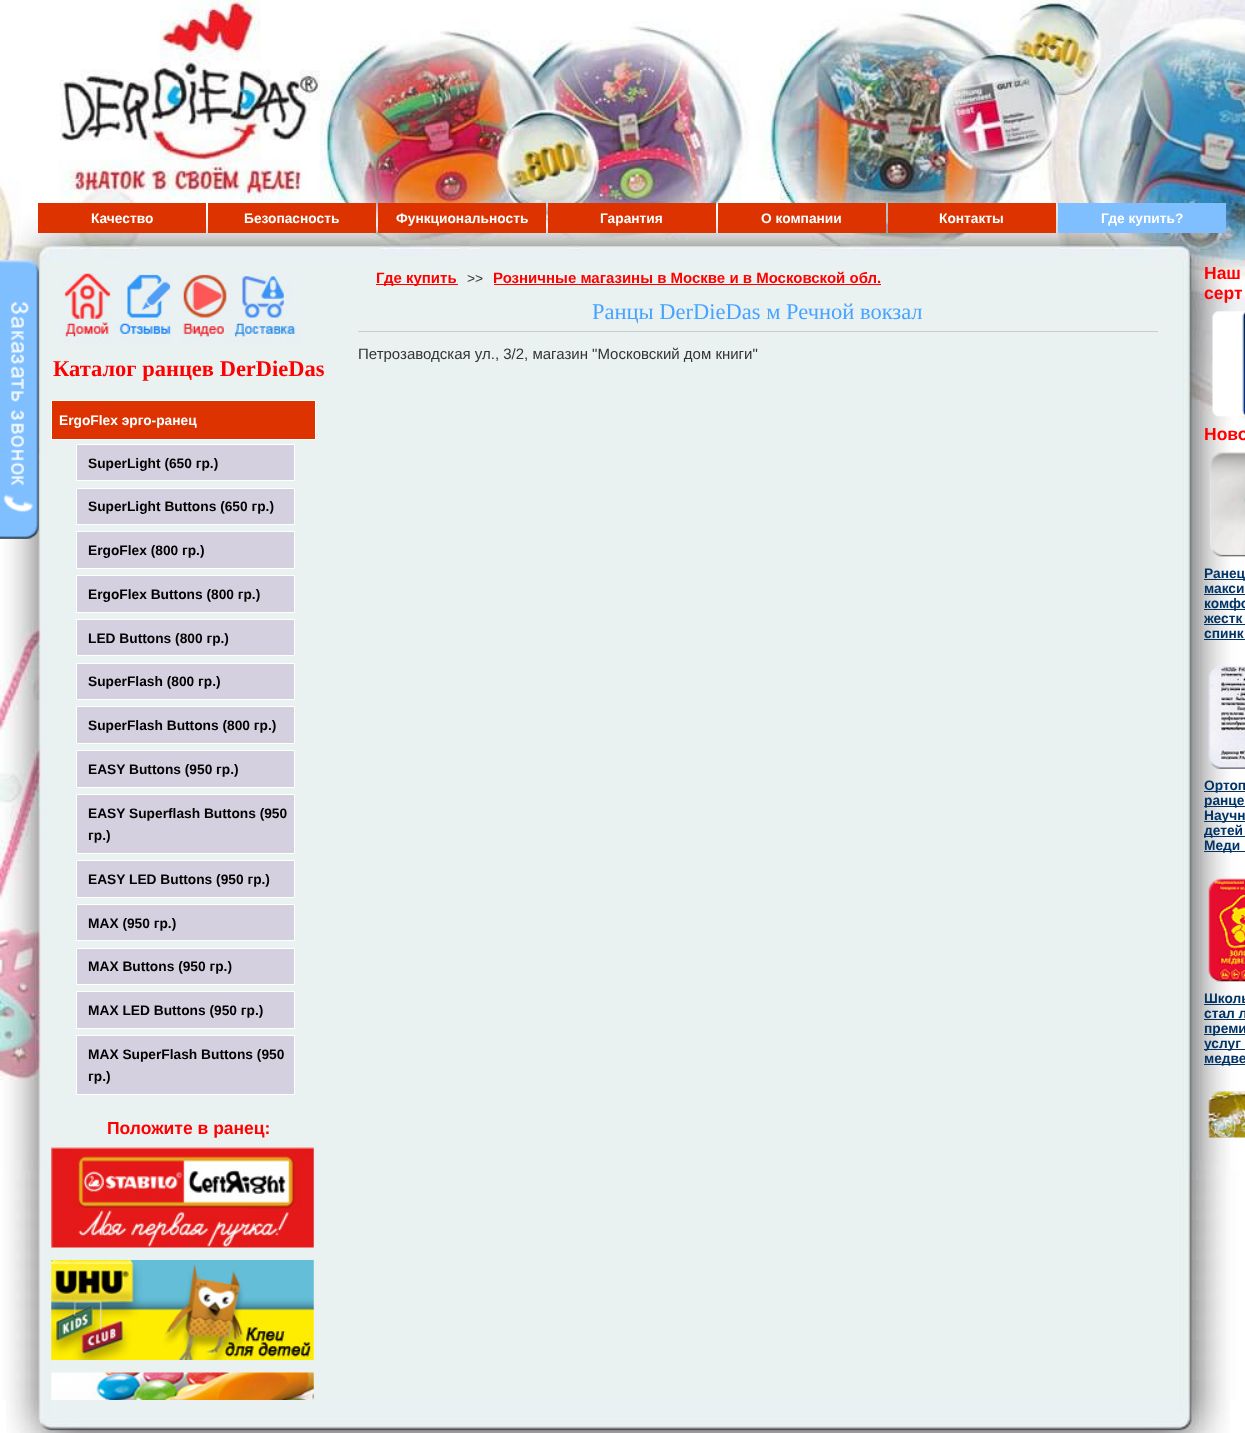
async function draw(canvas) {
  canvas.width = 1245;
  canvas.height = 1433;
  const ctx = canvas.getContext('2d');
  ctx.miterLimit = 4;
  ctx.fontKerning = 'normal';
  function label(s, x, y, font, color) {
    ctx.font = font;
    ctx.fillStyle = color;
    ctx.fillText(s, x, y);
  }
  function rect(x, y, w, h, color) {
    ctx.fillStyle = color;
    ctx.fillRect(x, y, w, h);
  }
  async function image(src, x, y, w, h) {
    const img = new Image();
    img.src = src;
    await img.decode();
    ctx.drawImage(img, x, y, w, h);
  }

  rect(0, 0, 1245, 1433, '#fff');
  await image('assets/img3.png', 0, 0, 1245, 1170);
  await image('assets/img1.png', 0, 260, 39, 279);
  await image('assets/img2.png', 0, 1170, 1245, 230);
  rect(38, 203, 168, 30, '#d30');
  label('Качество', 91, 223, 'bold 13.75px Liberation Sans', '#fff');
  rect(208, 203, 168, 30, '#d30');
  label('Безопасность', 244, 223, 'bold 13.75px Liberation Sans', '#fff');
  rect(378, 203, 168, 30, '#d30');
  label('Функциональность', 396, 223, 'bold 13.75px Liberation Sans', '#fff');
  rect(548, 203, 168, 30, '#d30');
  label('Гарантия', 600, 223, 'bold 13.75px Liberation Sans', '#fff');
  rect(718, 203, 168, 30, '#d30');
  label('О компании', 761, 223, 'bold 13.75px Liberation Sans', '#fff');
  rect(888, 203, 168, 30, '#d30');
  label('Контакты', 939, 223, 'bold 13.75px Liberation Sans', '#fff');
  rect(1058, 203, 168, 30, '#80bfff');
  label('Где купить?', 1101, 223, 'bold 13.75px Liberation Sans', '#fff');
  rect(376, 284, 82, 1, '#f00');
  label('Где купить', 376, 283, 'bold 15px Liberation Sans', '#f00');
  label('>>', 467, 283, '13.75px Liberation Sans', '#333');
  label('Розничные магазины в Москве и в Московской обл.', 493, 283, 'bold 15px Liberation Sans', '#f00');
  rect(494, 284, 387, 1, '#f00');
  label('Ранцы DerDieDas м Речной вокзал', 592, 319, '22.5px Liberation Serif', '#46a3ff');
  rect(358, 331, 800, 1, '#ccc');
  label('Петрозаводская ул., 3/2, магазин "Московский дом книги"', 358, 359, '15px Liberation Sans', '#333');
  await image('assets/img4.png', 61, 272, 240, 71);
  label('Каталог ранцев DerDieDas', 53, 376, 'bold 22.5px Liberation Serif', '#f00');
  ctx.fillStyle = '#d30';
  ctx.beginPath();
  ctx.rect(51.5, 400.5, 264, 39);
  ctx.fill();
  ctx.strokeStyle = '#fff';
  ctx.stroke();
  label('ErgoFlex эрго-ранец', 59, 425, 'bold 13.75px Liberation Sans', '#fff');
  ctx.fillStyle = '#d4d0df';
  ctx.beginPath();
  ctx.rect(76.5, 444.5, 218, 36);
  ctx.fill();
  ctx.stroke();
  label('SuperLight (650 гр.)', 88, 468, 'bold 13.75px Liberation Sans', '#000');
  ctx.fillStyle = '#d4d0df';
  ctx.beginPath();
  ctx.rect(76.5, 488.5, 218, 36);
  ctx.fill();
  ctx.stroke();
  label('SuperLight Buttons (650 гр.)', 88, 511, 'bold 13.75px Liberation Sans', '#000');
  ctx.fillStyle = '#d4d0df';
  ctx.beginPath();
  ctx.rect(76.5, 531.5, 218, 37);
  ctx.fill();
  ctx.stroke();
  label('ErgoFlex (800 гр.)', 88, 555, 'bold 13.75px Liberation Sans', '#000');
  ctx.fillStyle = '#d4d0df';
  ctx.beginPath();
  ctx.rect(76.5, 575.5, 218, 37);
  ctx.fill();
  ctx.stroke();
  label('ErgoFlex Buttons (800 гр.)', 88, 599, 'bold 13.75px Liberation Sans', '#000');
  ctx.fillStyle = '#d4d0df';
  ctx.beginPath();
  ctx.rect(76.5, 619.5, 218, 36);
  ctx.fill();
  ctx.stroke();
  label('LED Buttons (800 гр.)', 88, 643, 'bold 13.75px Liberation Sans', '#000');
  ctx.fillStyle = '#d4d0df';
  ctx.beginPath();
  ctx.rect(76.5, 663.5, 218, 36);
  ctx.fill();
  ctx.stroke();
  label('SuperFlash (800 гр.)', 88, 686, 'bold 13.75px Liberation Sans', '#000');
  ctx.fillStyle = '#d4d0df';
  ctx.beginPath();
  ctx.rect(76.5, 706.5, 218, 37);
  ctx.fill();
  ctx.stroke();
  label('SuperFlash Buttons (800 гр.)', 88, 730, 'bold 13.75px Liberation Sans', '#000');
  ctx.fillStyle = '#d4d0df';
  ctx.beginPath();
  ctx.rect(76.5, 750.5, 218, 37);
  ctx.fill();
  ctx.stroke();
  label('EASY Buttons (950 гр.)', 88, 774, 'bold 13.75px Liberation Sans', '#000');
  ctx.fillStyle = '#d4d0df';
  ctx.beginPath();
  ctx.rect(76.5, 794.5, 218, 59);
  ctx.fill();
  ctx.stroke();
  label('EASY Superflash Buttons (950', 88, 818, 'bold 13.75px Liberation Sans', '#000');
  label('гр.)', 88, 840, 'bold 13.75px Liberation Sans', '#000');
  ctx.fillStyle = '#d4d0df';
  ctx.beginPath();
  ctx.rect(76.5, 860.5, 218, 37);
  ctx.fill();
  ctx.stroke();
  label('EASY LED Buttons (950 гр.)', 88, 884, 'bold 13.75px Liberation Sans', '#000');
  ctx.fillStyle = '#d4d0df';
  ctx.beginPath();
  ctx.rect(76.5, 904.5, 218, 36);
  ctx.fill();
  ctx.stroke();
  label('MAX (950 гр.)', 88, 928, 'bold 13.75px Liberation Sans', '#000');
  ctx.fillStyle = '#d4d0df';
  ctx.beginPath();
  ctx.rect(76.5, 948.5, 218, 36);
  ctx.fill();
  ctx.stroke();
  label('MAX Buttons (950 гр.)', 88, 971, 'bold 13.75px Liberation Sans', '#000');
  ctx.fillStyle = '#d4d0df';
  ctx.beginPath();
  ctx.rect(76.5, 991.5, 218, 37);
  ctx.fill();
  ctx.stroke();
  label('MAX LED Buttons (950 гр.)', 88, 1015, 'bold 13.75px Liberation Sans', '#000');
  ctx.fillStyle = '#d4d0df';
  ctx.beginPath();
  ctx.rect(76.5, 1035.5, 218, 59);
  ctx.fill();
  ctx.stroke();
  label('MAX SuperFlash Buttons (950', 88, 1059, 'bold 13.75px Liberation Sans', '#000');
  label('гр.)', 88, 1081, 'bold 13.75px Liberation Sans', '#000');
  label('Положите в ранец:', 107, 1134, 'bold 17.5px Liberation Sans', '#f00');
  await image('assets/img5.png', 51, 1147, 263, 101);
  await image('assets/img6.png', 51, 1260, 263, 100);
  await image('assets/img7.png', 51, 1372, 263, 28);
  label('Наш', 1204, 279, 'bold 17.5px Liberation Sans', '#f00');
  label('серт', 1204, 299, 'bold 17.5px Liberation Sans', '#f00');
  await image('assets/img8.png', 1212, 311, 33, 106);
  label('Ново', 1204, 440, 'bold 17.5px Liberation Sans', '#f00');
  await image('assets/img9.png', 1210, 452, 35, 105);
  rect(1204, 579, 41, 1, '#036');
  label('Ранец', 1204, 578, 'bold 13.75px Liberation Sans', '#036');
  label('макси', 1204, 593, 'bold 13.75px Liberation Sans', '#036');
  rect(1204, 594, 41, 1, '#036');
  rect(1204, 609, 41, 1, '#036');
  label('комфо', 1204, 608, 'bold 13.75px Liberation Sans', '#036');
  label('жестк', 1204, 623, 'bold 13.75px Liberation Sans', '#036');
  rect(1204, 624, 41, 1, '#036');
  label('спинк', 1204, 638, 'bold 13.75px Liberation Sans', '#036');
  rect(1204, 639, 41, 1, '#036');
  await image('assets/img10.png', 1208, 666, 37, 103);
  rect(1204, 791, 41, 1, '#036');
  label('Ортоп', 1204, 790, 'bold 13.75px Liberation Sans', '#036');
  rect(1204, 806, 41, 1, '#036');
  label('ранце', 1204, 805, 'bold 13.75px Liberation Sans', '#036');
  rect(1204, 821, 41, 1, '#036');
  label('Научн', 1204, 820, 'bold 13.75px Liberation Sans', '#036');
  rect(1204, 836, 41, 1, '#036');
  ctx.save();
  ctx.beginPath();
  ctx.rect(1204, 656, 41, 213);
  ctx.clip();
  label('детей', 1204, 835, 'bold 13.75px Liberation Sans', '#036');
  ctx.restore();
  rect(1204, 851, 41, 1, '#036');
  label('Меди', 1204, 850, 'bold 13.75px Liberation Sans', '#036');
  await image('assets/img11.png', 1208, 878, 37, 104);
  label('Школь', 1204, 1003, 'bold 13.75px Liberation Sans', '#036');
  rect(1204, 1004, 41, 1, '#036');
  label('стал л', 1204, 1018, 'bold 13.75px Liberation Sans', '#036');
  rect(1204, 1019, 41, 1, '#036');
  rect(1204, 1034, 41, 1, '#036');
  label('преми', 1204, 1033, 'bold 13.75px Liberation Sans', '#036');
  rect(1204, 1049, 41, 1, '#036');
  label('услуг', 1204, 1048, 'bold 13.75px Liberation Sans', '#036');
  rect(1204, 1064, 41, 1, '#036');
  label('медве', 1204, 1063, 'bold 13.75px Liberation Sans', '#036');
  await image('assets/img12.png', 1208, 1091, 37, 47);
  await image('assets/img13.png', 6, 1400, 1224, 33);
}

draw(document.querySelector('canvas'));
